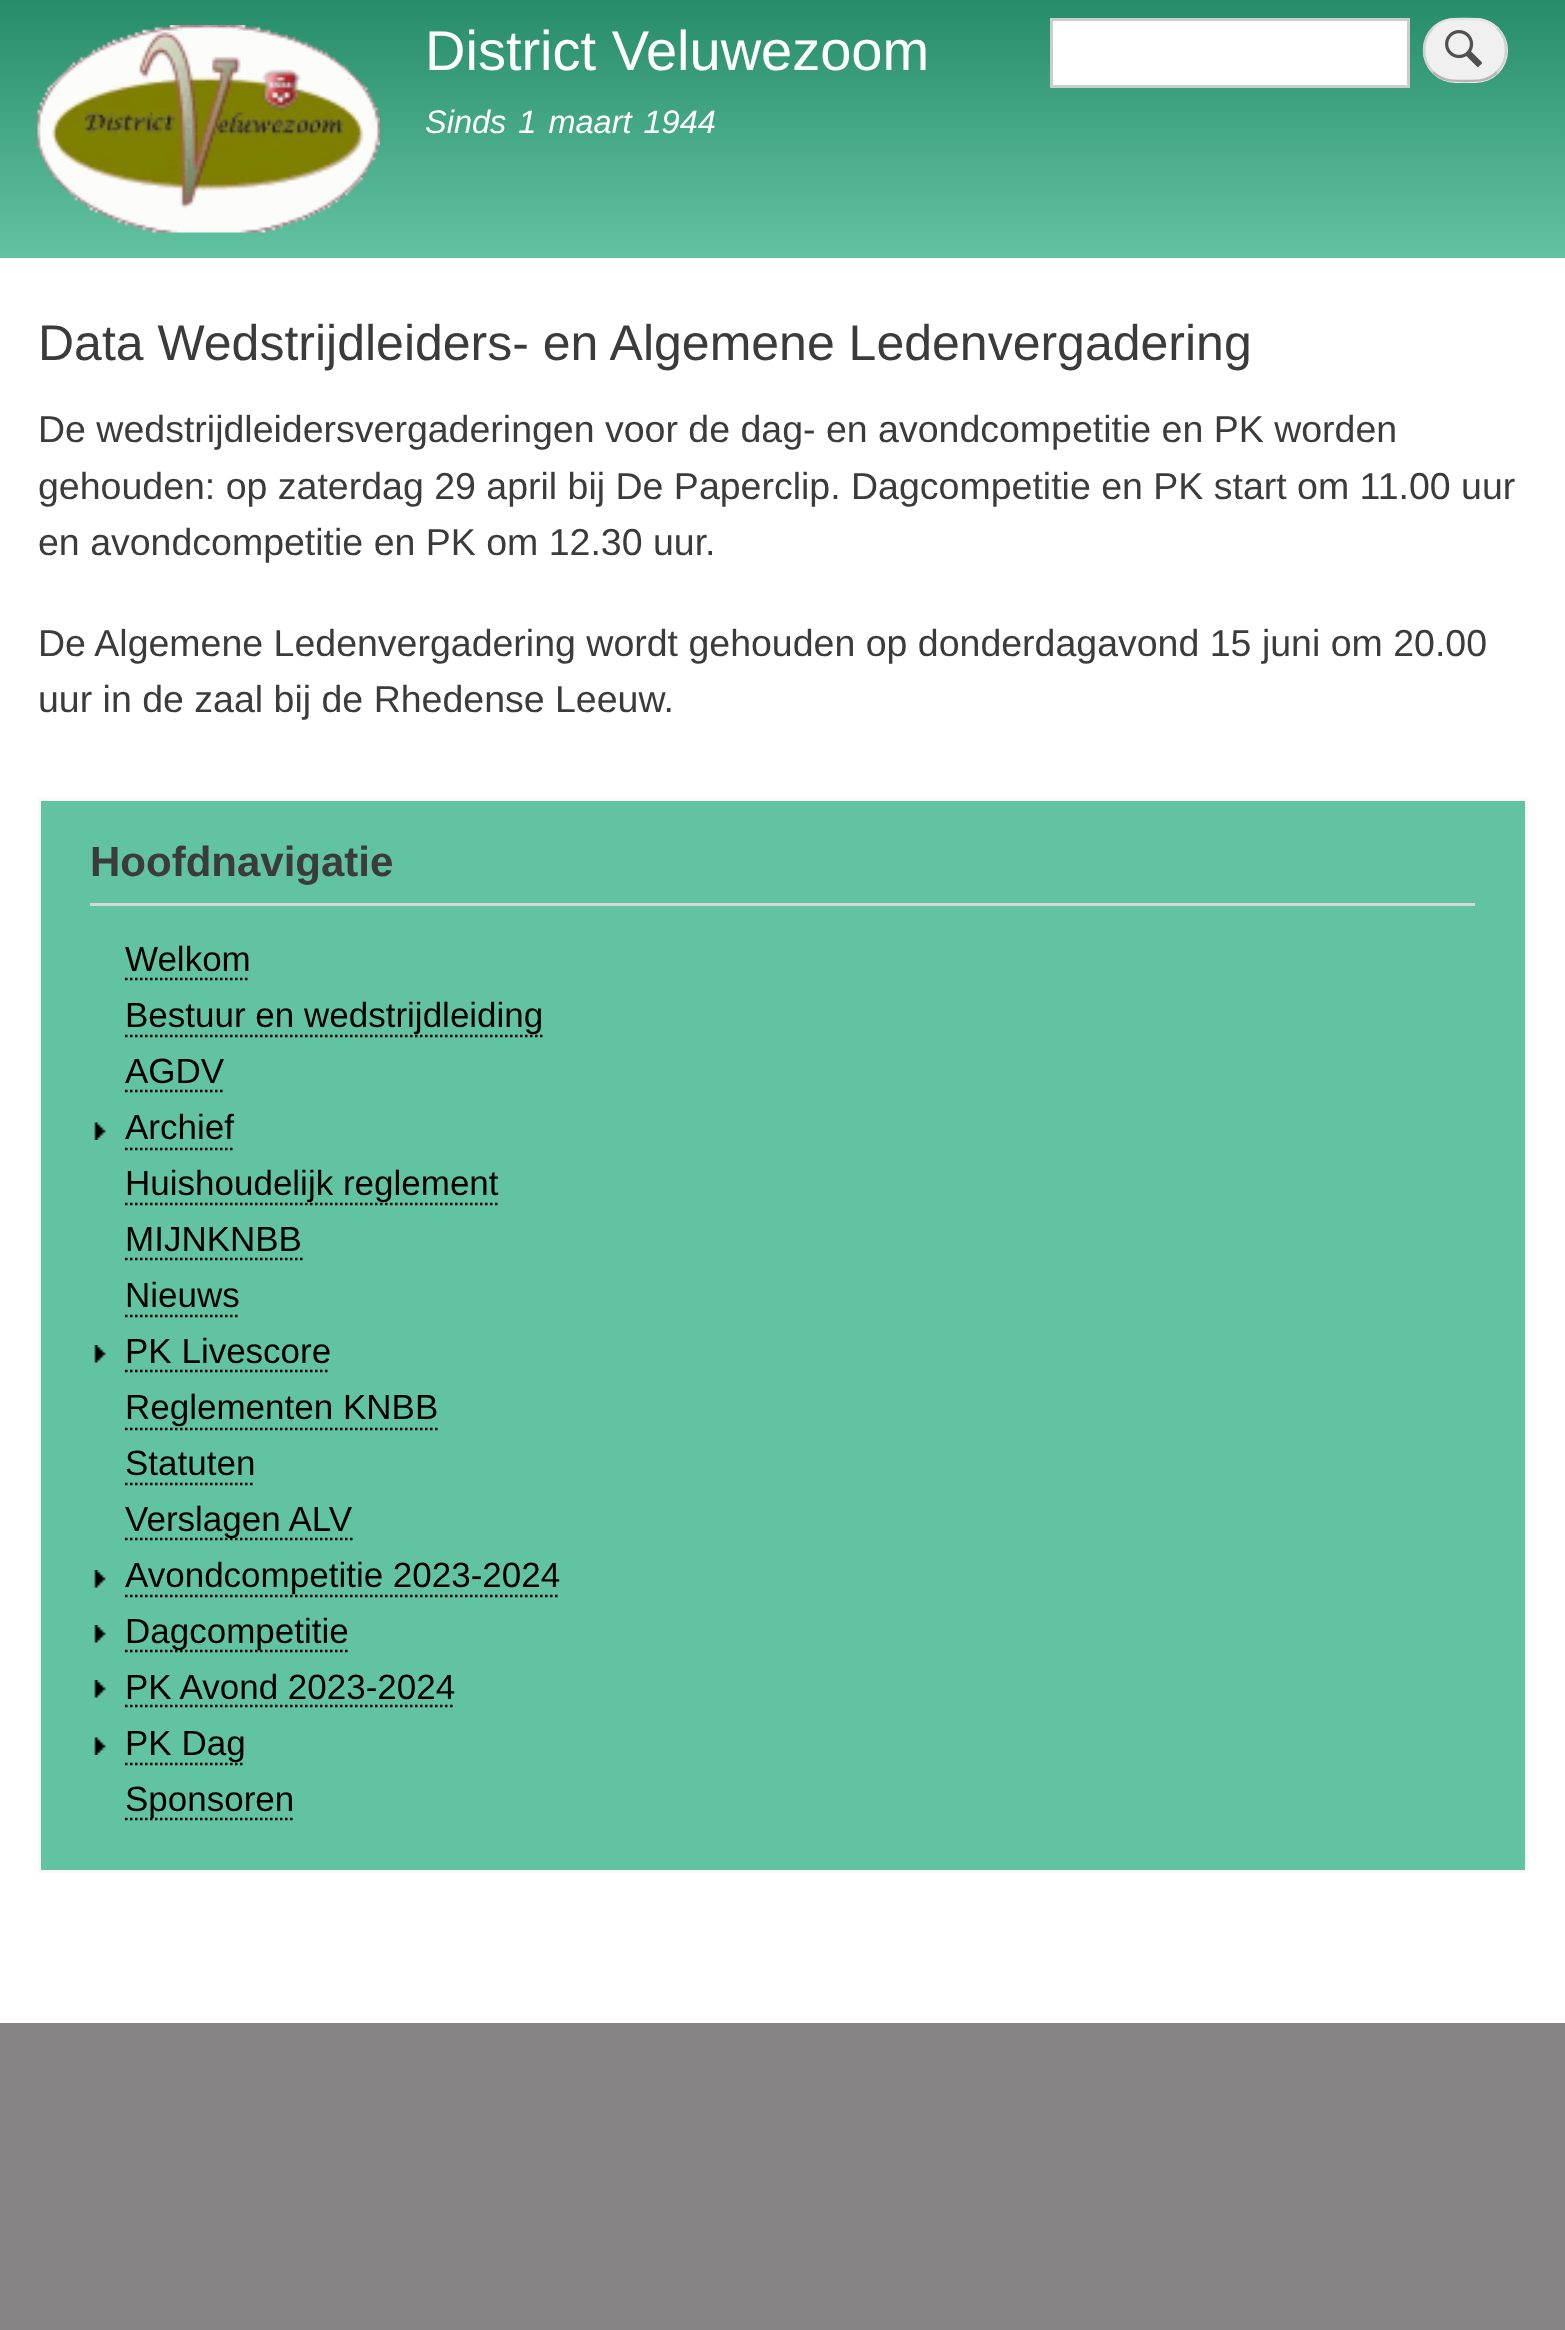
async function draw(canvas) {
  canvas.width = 1565;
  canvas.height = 2330;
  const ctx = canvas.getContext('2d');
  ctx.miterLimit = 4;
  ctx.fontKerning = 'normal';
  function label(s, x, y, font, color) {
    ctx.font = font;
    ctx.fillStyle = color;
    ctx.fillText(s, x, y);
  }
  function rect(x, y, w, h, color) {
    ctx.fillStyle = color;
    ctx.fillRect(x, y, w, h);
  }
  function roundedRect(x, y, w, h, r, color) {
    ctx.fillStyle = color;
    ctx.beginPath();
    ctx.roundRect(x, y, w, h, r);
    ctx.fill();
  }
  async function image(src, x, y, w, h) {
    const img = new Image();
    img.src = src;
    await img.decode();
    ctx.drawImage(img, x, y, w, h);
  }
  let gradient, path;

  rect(0, 0, 1565, 2330, '#868484');
  rect(0, 258, 1565, 1765, '#fff');
  gradient = ctx.createLinearGradient(783, 0, 783, 258);
  gradient.addColorStop(0, '#278c6a');
  gradient.addColorStop(1, '#62c3a2');
  ctx.fillStyle = gradient;
  ctx.fillRect(0, 0, 1565, 258);
  await image('assets/img1.png', 37, 25, 343, 208);
  label('District Veluwezoom', 425, 70, '56px Liberation Sans', '#fffeff');
  ctx.wordSpacing = '3px';
  label('Sinds 1 maart 1944', 425, 133, 'italic 32.5px Liberation Sans', '#fffeff');
  ctx.fillStyle = '#fff';
  ctx.beginPath();
  ctx.rect(1051.5, 19.5, 357, 67);
  ctx.fill();
  ctx.strokeStyle = '#ccc';
  ctx.lineWidth = 3;
  ctx.stroke();
  roundedRect(1423, 18, 85, 65, 32.5, '#f0f0f0');
  await image('assets/img2.png', 1445, 30, 37, 37);
  path = new Path2D('M1433 28C1442.5 18.5 1452.5 19 1465 19C1477.5 19 1487.5 18.5 1497 28');
  ctx.strokeStyle = '#e4e4e4';
  ctx.lineWidth = 2.5;
  ctx.stroke(path);
  path = new Path2D('M1497 28C1509 40 1509 60 1497 72');
  ctx.strokeStyle = '#d2d2d2';
  ctx.stroke(path);
  path = new Path2D('M1497 72C1487.5 81.5 1477.5 81 1465 81C1452.5 81 1442.5 81.5 1433 72');
  ctx.strokeStyle = '#b4b4b4';
  ctx.stroke(path);
  path = new Path2D('M1433 72C1421 60 1421 40 1433 28');
  ctx.strokeStyle = '#d2d2d2';
  ctx.stroke(path);
  ctx.wordSpacing = '0px';
  label('Data Wedstrijdleiders- en Algemene Ledenvergadering', 38, 360, '50px Liberation Sans', '#3b3b3b');
  label('De wedstrijdleidersvergaderingen voor de dag- en avondcompetitie en PK worden', 38, 442, '37.5px Liberation Sans', '#3b3b3b');
  label('gehouden: op zaterdag 29 april bij De Paperclip. Dagcompetitie en PK start om 11.00 uur', 38, 499, '37.5px Liberation Sans', '#3b3b3b');
  label('en avondcompetitie en PK om 12.30 uur.', 38, 555, '37.5px Liberation Sans', '#3b3b3b');
  label('De Algemene Ledenvergadering wordt gehouden op donderdagavond 15 juni om 20.00', 38, 656, '37.5px Liberation Sans', '#3b3b3b');
  label('uur in de zaal bij de Rhedense Leeuw.', 38, 712, '37.5px Liberation Sans', '#3b3b3b');
  ctx.fillStyle = '#62c3a2';
  ctx.beginPath();
  ctx.rect(39.5, 799.5, 1487, 1072);
  ctx.fill();
  ctx.strokeStyle = '#f9f9f9';
  ctx.lineWidth = 3;
  ctx.stroke();
  rect(90, 903, 1385, 3, '#d6d6d6');
  label('Hoofdnavigatie', 90, 876, 'bold 42px Liberation Sans', '#3b3b3b');
  label('Welkom', 125, 971, '35px Liberation Sans', '#000');
  path = new Path2D('M125 979H250');
  ctx.strokeStyle = '#000';
  ctx.lineWidth = 2.5;
  ctx.setLineDash([2.5, 2.5]);
  ctx.stroke(path);
  path = new Path2D('M125 1036H542.5');
  ctx.stroke(path);
  label('Bestuur en wedstrijdleiding', 125, 1027, '35px Liberation Sans', '#000');
  label('AGDV', 125, 1083, '35px Liberation Sans', '#000');
  path = new Path2D('M125 1091H225');
  ctx.stroke(path);
  await image('assets/img3.png', 94, 1122, 12, 18);
  label('Archief', 125, 1139, '35px Liberation Sans', '#000');
  path = new Path2D('M125 1149H235');
  ctx.stroke(path);
  path = new Path2D('M125 1204H497.5');
  ctx.stroke(path);
  label('Huishoudelijk reglement', 125, 1195, '35px Liberation Sans', '#000');
  label('MIJNKNBB', 125, 1251, '35px Liberation Sans', '#000');
  path = new Path2D('M125 1259H302.5');
  ctx.stroke(path);
  label('Nieuws', 125, 1307, '35px Liberation Sans', '#000');
  path = new Path2D('M125 1316H240');
  ctx.stroke(path);
  await image('assets/img4.png', 94, 1345, 12, 18);
  label('PK Livescore', 125, 1363, '35px Liberation Sans', '#000');
  path = new Path2D('M125 1371H330');
  ctx.stroke(path);
  label('Reglementen KNBB', 125, 1419, '35px Liberation Sans', '#000');
  path = new Path2D('M125 1429H437.5');
  ctx.stroke(path);
  label('Statuten', 125, 1475, '35px Liberation Sans', '#000');
  path = new Path2D('M125 1484H255');
  ctx.stroke(path);
  path = new Path2D('M125 1539H352.5');
  ctx.stroke(path);
  label('Verslagen ALV', 125, 1531, '35px Liberation Sans', '#000');
  await image('assets/img4.png', 94, 1570, 12, 18);
  path = new Path2D('M125 1596H560');
  ctx.stroke(path);
  label('Avondcompetitie 2023-2024', 125, 1587, '35px Liberation Sans', '#000');
  await image('assets/img4.png', 94, 1625, 12, 18);
  path = new Path2D('M125 1651H350');
  ctx.stroke(path);
  label('Dagcompetitie', 125, 1643, '35px Liberation Sans', '#000');
  await image('assets/img4.png', 94, 1680, 12, 18);
  label('PK Avond 2023-2024', 125, 1699, '35px Liberation Sans', '#000');
  path = new Path2D('M125 1706H455');
  ctx.stroke(path);
  await image('assets/img3.png', 94, 1737, 12, 18);
  path = new Path2D('M125 1764H245');
  ctx.stroke(path);
  label('PK Dag', 125, 1755, '35px Liberation Sans', '#000');
  path = new Path2D('M125 1819H295');
  ctx.stroke(path);
  label('Sponsoren', 125, 1811, '35px Liberation Sans', '#000');
}

draw(document.querySelector('canvas'));
